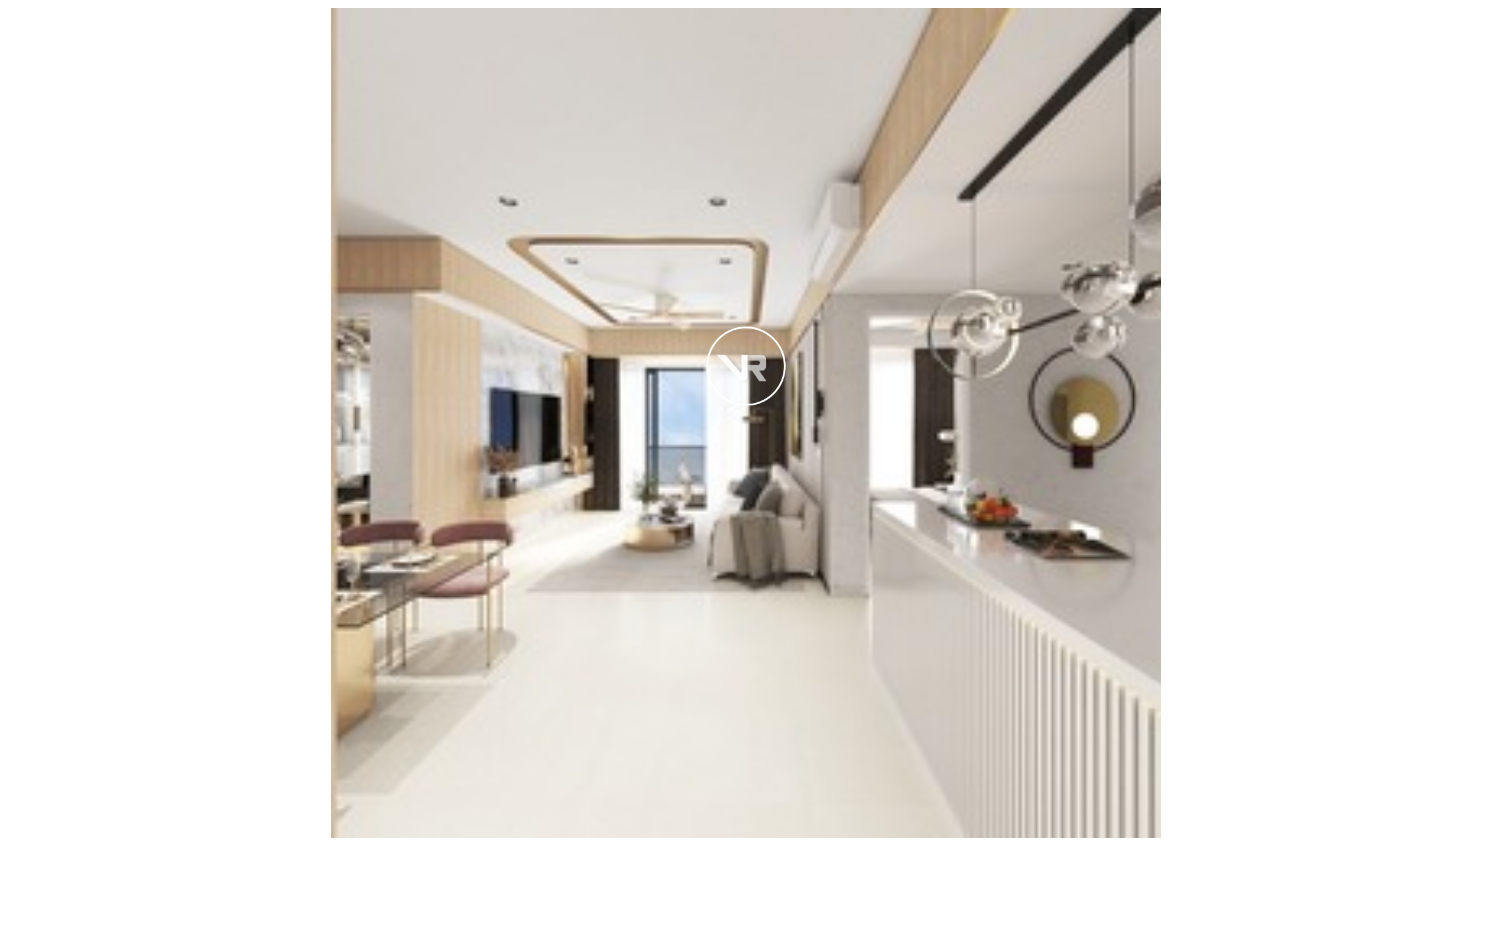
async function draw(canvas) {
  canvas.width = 1491;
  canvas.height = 927;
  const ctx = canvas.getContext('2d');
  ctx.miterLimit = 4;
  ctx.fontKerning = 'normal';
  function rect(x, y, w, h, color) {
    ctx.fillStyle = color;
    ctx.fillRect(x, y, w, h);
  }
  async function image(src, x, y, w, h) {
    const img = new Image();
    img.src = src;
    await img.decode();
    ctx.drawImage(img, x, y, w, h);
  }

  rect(0, 0, 1491, 927, '#fff');
  await image('assets/img1.png', 331, 8, 830, 830);
}

draw(document.querySelector('canvas'));
